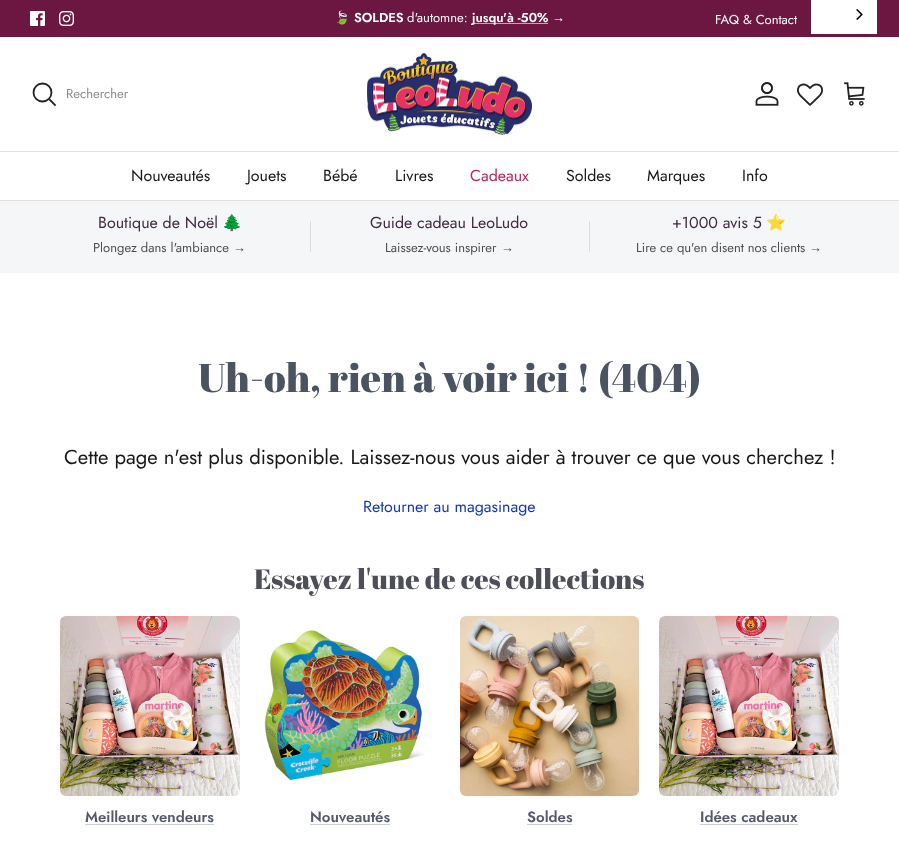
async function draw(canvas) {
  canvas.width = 899;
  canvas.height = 866;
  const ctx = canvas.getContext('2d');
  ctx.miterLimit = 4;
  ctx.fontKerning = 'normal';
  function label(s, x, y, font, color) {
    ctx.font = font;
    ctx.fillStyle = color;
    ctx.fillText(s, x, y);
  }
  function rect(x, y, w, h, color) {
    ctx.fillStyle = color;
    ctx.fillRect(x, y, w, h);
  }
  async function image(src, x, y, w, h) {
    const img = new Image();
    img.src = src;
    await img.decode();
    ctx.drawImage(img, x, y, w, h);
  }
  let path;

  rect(0, 0, 899, 866, '#fff');
  rect(0, 0, 899, 37, '#6b1741');
  await image('assets/img1.png', 30, 11, 15, 15);
  await image('assets/img2.png', 59, 11, 15, 15);
  label('🍃', 334, 22, '13px Noto Color Emoji', '#fff');
  label('SOLDES', 354, 22, '600 13px Jost', '#fff');
  label('d\'automne:', 407, 22, '13px Jost', '#fff');
  rect(472, 23, 76, 1, '#c4a2b3');
  label('jusqu\'à -50%', 472, 22, '600 13px Jost', '#fff');
  label('→', 552, 22, '13px Liberation Sans', '#fff');
  label('FAQ & Contact', 715, 24, '13px Jost', '#fff');
  rect(811, 0, 66, 34, '#fff');
  await image('assets/img3.png', 856, 9, 7, 11);
  rect(0, 151, 899, 1, '#e2e2e2');
  ctx.beginPath();
  ctx.arc(42.5, 92.5, 9, 0, 2 * Math.PI);
  ctx.strokeStyle = '#202223';
  ctx.lineWidth = 1.8;
  ctx.stroke();
  path = new Path2D('M50 100L55 105');
  ctx.lineCap = 'square';
  ctx.stroke(path);
  label('Rechercher', 66, 98, '13px Jost', '#888');
  await image('assets/img4.png', 367, 53, 165, 82);
  await image('assets/img5.png', 755, 82, 24, 24);
  await image('assets/img6.png', 797, 83, 26, 23);
  await image('assets/img7.png', 844, 82, 21, 24);
  rect(0, 200, 899, 1, '#e2e2e2');
  label('Nouveautés', 131, 181, '16px Jost', '#171717');
  label('Jouets', 247, 181, '16px Jost', '#171717');
  label('Bébé', 323, 181, '16px Jost', '#171717');
  label('Livres', 395, 181, '16px Jost', '#171717');
  label('Cadeaux', 470, 181, '16px Jost', '#ba265a');
  label('Soldes', 566, 181, '16px Jost', '#171717');
  label('Marques', 647, 181, '16px Jost', '#171717');
  label('Info', 742, 181, '16px Jost', '#171717');
  rect(0, 201, 899, 72, '#f4f6f8');
  label('Boutique de Noël', 98, 228, '16px Jost', '#412a40');
  label('🌲', 222, 228, '16px Noto Color Emoji', '#412a40');
  label('Plongez dans l\'ambiance', 93, 252, '13px Jost', '#4c4c4c');
  label('→', 233, 252, '13px Liberation Sans', '#4c4c4c');
  rect(310, 221, 1, 31, '#dbddde');
  label('Guide cadeau LeoLudo', 370, 228, '16px Jost', '#412a40');
  label('Laissez-vous inspirer', 385, 252, '13px Jost', '#4c4c4c');
  label('→', 501, 252, '13px Liberation Sans', '#4c4c4c');
  rect(589, 221, 1, 31, '#dbddde');
  label('+1000 avis 5', 672, 228, '16px Jost', '#412a40');
  label('⭐', 766, 228, '16px Noto Color Emoji', '#412a40');
  label('Lire ce qu\'en disent nos clients', 636, 252, '13px Jost', '#4c4c4c');
  label('→', 809, 252, '13px Liberation Sans', '#4c4c4c');
  label('Uh-oh, rien à voir ici ! (404)', 198, 392, '40px Abril Fatface', '#4b5360');
  label('Cette page n\'est plus disponible. Laissez-nous vous aider à trouver ce que vous cherchez !', 64, 464, '20.25px Jost', '#171717');
  label('Retourner au magasinage', 363, 512, '16px Jost', '#1238bf');
  label('Essayez l\'une de ces collections', 254, 589, '28px Abril Fatface', '#4e4e59');
  await image('assets/img8.png', 60, 616, 180, 180);
  label('Meilleurs vendeurs', 85, 822, '600 15px Jost', '#545a6a');
  rect(85, 824, 129, 1, '#ccced2');
  await image('assets/img9.png', 264, 626, 161, 156);
  label('Nouveautés', 310, 822, '600 15px Jost', '#545a6a');
  rect(310, 824, 80, 1, '#ccced2');
  await image('assets/img10.png', 460, 616, 179, 180);
  label('Soldes', 527, 822, '600 15px Jost', '#545a6a');
  rect(527, 824, 45, 1, '#ccced2');
  await image('assets/img11.png', 659, 616, 180, 180);
  label('Idées cadeaux', 700, 822, '600 15px Jost', '#545a6a');
  rect(700, 824, 98, 1, '#ccced2');
}

draw(document.querySelector('canvas'));
